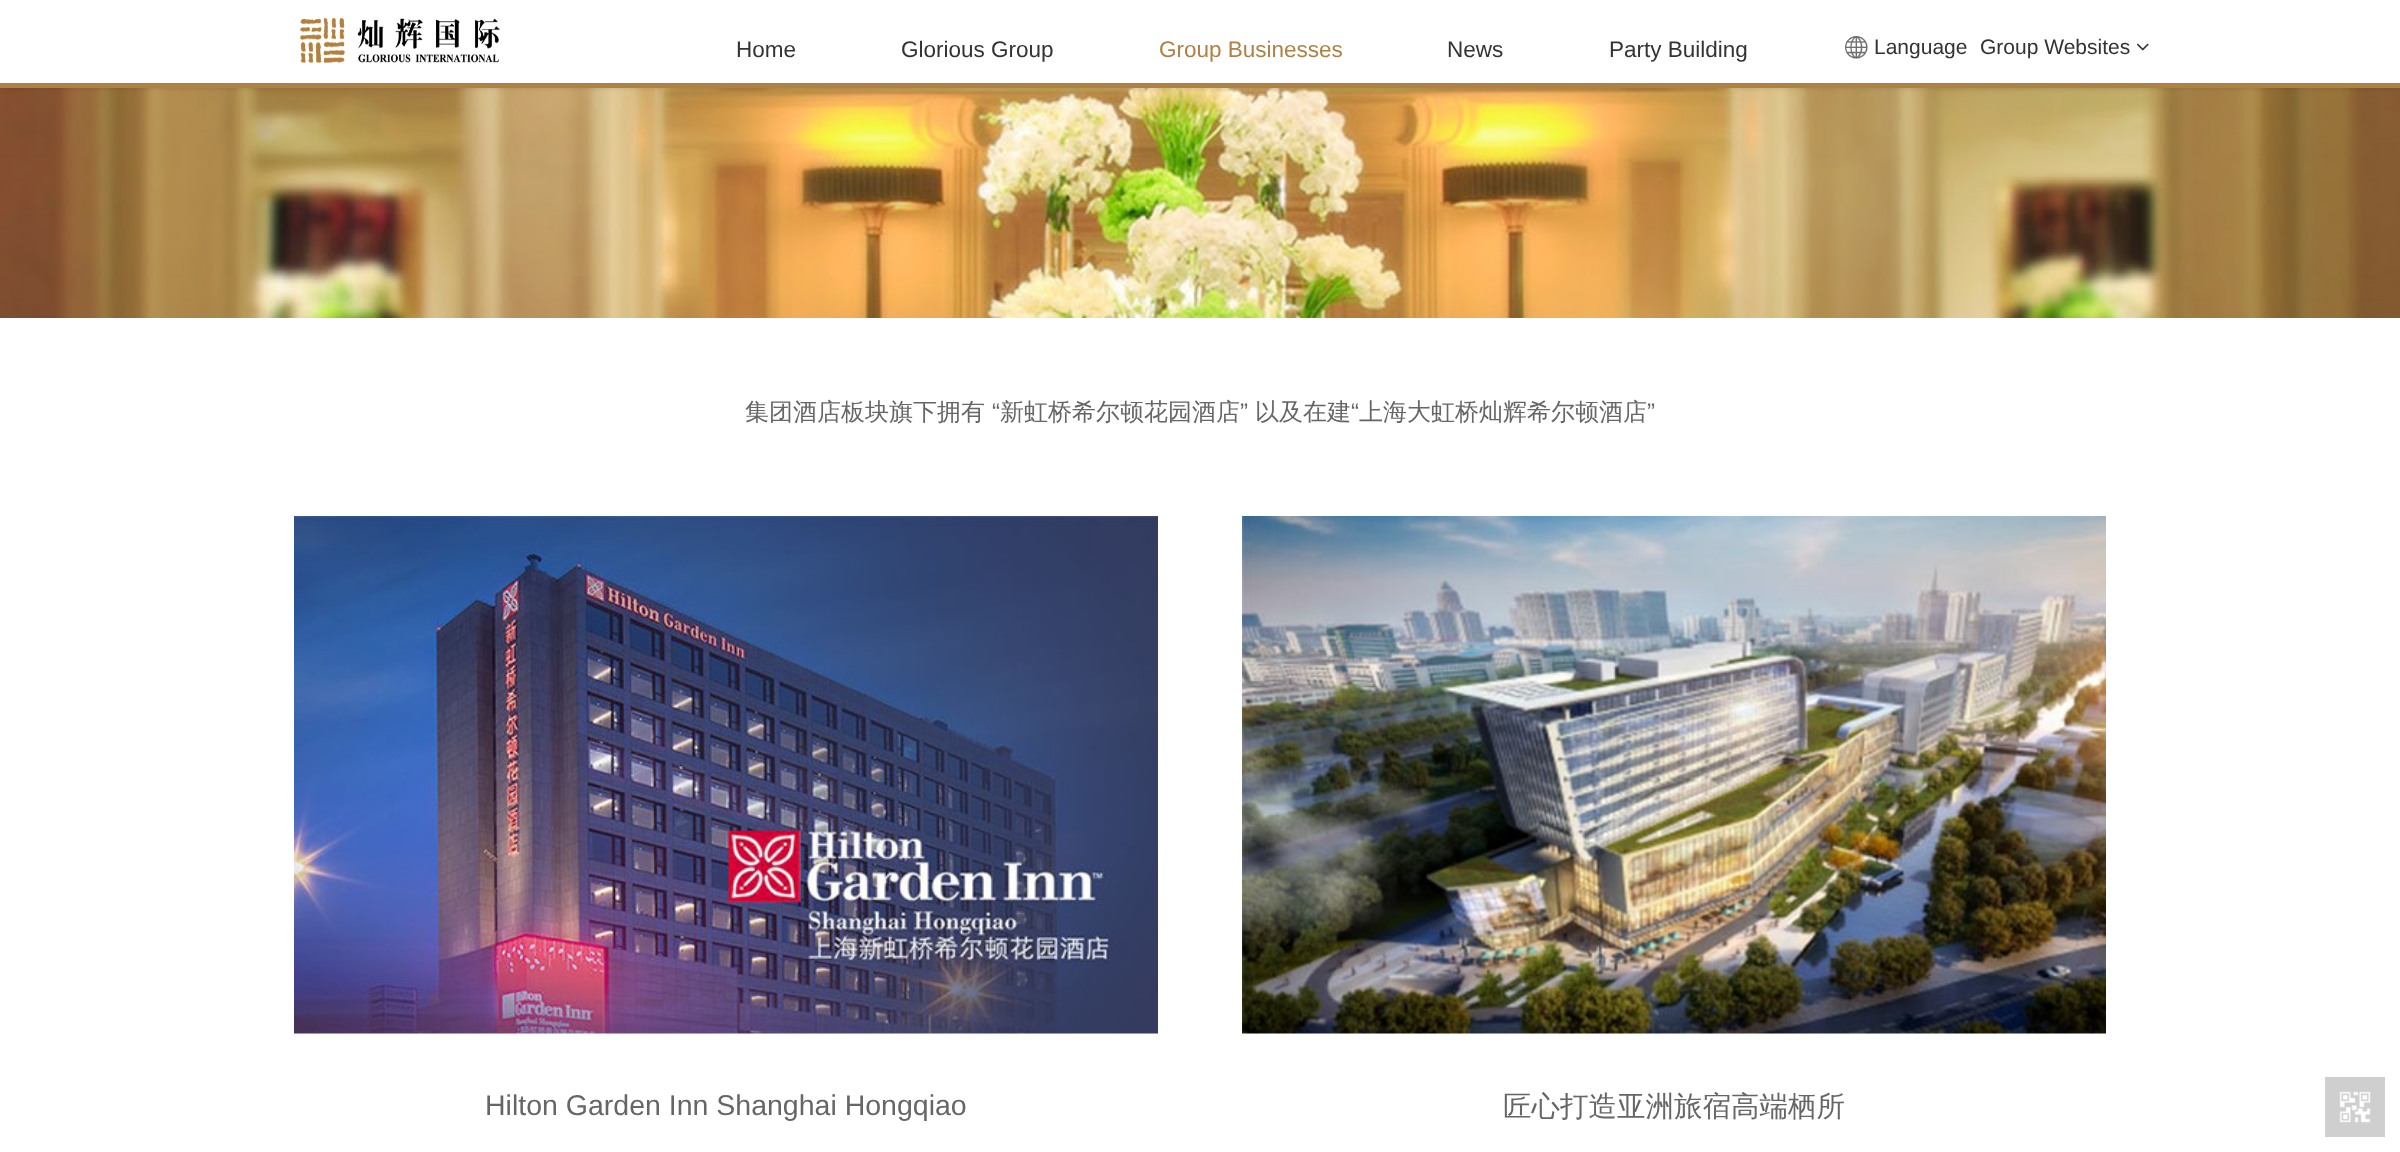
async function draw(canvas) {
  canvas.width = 2400;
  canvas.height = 1152;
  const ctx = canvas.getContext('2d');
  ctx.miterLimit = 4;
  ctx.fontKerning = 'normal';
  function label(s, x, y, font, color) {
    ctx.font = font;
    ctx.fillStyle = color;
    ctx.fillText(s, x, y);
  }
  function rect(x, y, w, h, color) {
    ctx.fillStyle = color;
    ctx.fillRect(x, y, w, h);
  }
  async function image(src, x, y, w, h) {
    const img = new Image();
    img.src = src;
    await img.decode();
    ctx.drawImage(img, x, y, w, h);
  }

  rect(0, 0, 2400, 1152, '#fff');
  await image('assets/img4.png', 0, 88, 2400, 230);
  ctx.fillStyle = '#0000001a';
  ctx.filter = 'blur(2px)';
  ctx.beginPath();
  ctx.rect(0, 2, 2400, 87);
  ctx.fill();
  ctx.filter = 'none';
  rect(0, 0, 2400, 83, '#fff');
  rect(0, 83, 2400, 5, '#b08145');
  await image('assets/img1.png', 300, 18, 200, 45);
  label('Home', 736, 57, '22.5px Liberation Sans', '#333');
  label('Glorious Group', 901, 57, '22.5px Liberation Sans', '#333');
  label('Group Businesses', 1159, 57, '22.5px Liberation Sans', '#b08145');
  label('News', 1447, 57, '22.5px Liberation Sans', '#333');
  label('Party Building', 1609, 57, '22.5px Liberation Sans', '#333');
  await image('assets/img2.png', 1845, 36, 23, 23);
  label('Language', 1874, 54, '21px Liberation Sans', '#333');
  label('Group Websites', 1980, 54, '21px Liberation Sans', '#333');
  await image('assets/img3.png', 2136, 43, 13, 8);
  label('集团酒店板块旗下拥有', 745, 420, '500 24px WenQuanYi Zen Hei', '#666');
  label('“', 992, 420, '24px Liberation Sans', '#666');
  label('新虹桥希尔顿花园酒店', 1000, 420, '500 24px WenQuanYi Zen Hei', '#666');
  label('”', 1240, 420, '24px Liberation Sans', '#666');
  label('以及在建', 1255, 420, '500 24px WenQuanYi Zen Hei', '#666');
  label('“', 1351, 420, '24px Liberation Sans', '#666');
  label('上海大虹桥灿辉希尔顿酒店', 1359, 420, '500 24px WenQuanYi Zen Hei', '#666');
  label('”', 1647, 420, '24px Liberation Sans', '#666');
  await image('assets/img5.png', 294, 516, 864, 518);
  label('Hilton Garden Inn Shanghai Hongqiao', 485, 1115, '28.5px Liberation Sans', '#666');
  await image('assets/img6.png', 1242, 516, 864, 518);
  label('匠心打造亚洲旅宿高端栖所', 1503, 1116, '500 28.5px WenQuanYi Zen Hei', '#666');
  rect(2325, 1077, 60, 60, '#cfcfcf');
  await image('assets/img7.png', 2339, 1091, 32, 32);
}

draw(document.querySelector('canvas'));
